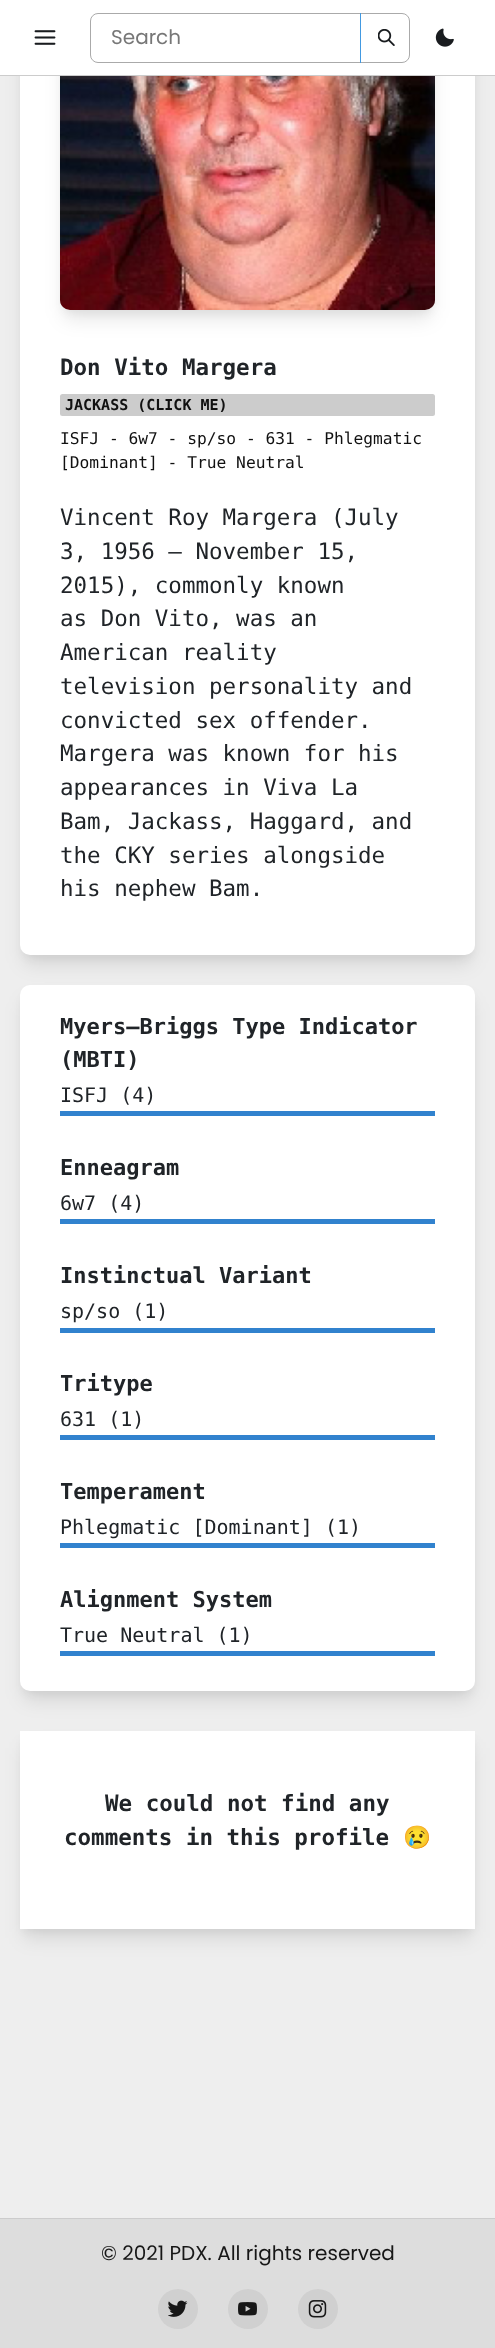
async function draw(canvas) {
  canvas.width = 495;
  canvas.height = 2348;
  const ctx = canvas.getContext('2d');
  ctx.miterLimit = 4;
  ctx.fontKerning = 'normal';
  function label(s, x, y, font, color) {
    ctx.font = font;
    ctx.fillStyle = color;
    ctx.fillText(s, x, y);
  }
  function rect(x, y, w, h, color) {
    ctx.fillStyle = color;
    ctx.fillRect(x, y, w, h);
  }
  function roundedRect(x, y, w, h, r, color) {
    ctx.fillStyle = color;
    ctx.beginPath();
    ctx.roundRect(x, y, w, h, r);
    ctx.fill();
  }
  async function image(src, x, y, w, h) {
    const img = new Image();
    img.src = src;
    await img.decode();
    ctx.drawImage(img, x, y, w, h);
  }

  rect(0, 0, 495, 2348, '#eee');
  ctx.fillStyle = '#0000000d';
  ctx.filter = 'blur(4px)';
  ctx.beginPath();
  ctx.roundRect(23, -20, 450, 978, 8);
  ctx.fill();
  ctx.filter = 'none';
  ctx.fillStyle = '#0000001a';
  ctx.filter = 'blur(9.5px)';
  ctx.beginPath();
  ctx.roundRect(24, -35, 447, 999, 6);
  ctx.fill();
  ctx.filter = 'none';
  roundedRect(20, -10, 455, 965, 10, '#fff');
  ctx.fillStyle = '#0000000d';
  ctx.filter = 'blur(4px)';
  ctx.beginPath();
  ctx.roundRect(63, -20, 370, 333, 8);
  ctx.fill();
  ctx.filter = 'none';
  ctx.fillStyle = '#0000001a';
  ctx.filter = 'blur(9.5px)';
  ctx.beginPath();
  ctx.roundRect(64, -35, 367, 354, 6);
  ctx.fill();
  ctx.filter = 'none';
  rect(0, 0, 495, 75, '#fff');
  rect(0, 75, 495, 1, '#ccc');
  await image('assets/img1.png', 34, 30, 22, 15);
  ctx.beginPath();
  ctx.roundRect(90.5, 13.5, 319, 49, 7.5);
  ctx.strokeStyle = '#aaa';
  ctx.stroke();
  label('Search', 111, 44, '20px Poppins', '#777');
  rect(360, 13, 1, 50, '#4299e1');
  await image('assets/img2.png', 378, 29, 17, 17);
  await image('assets/img3.png', 435, 28, 19, 19);
  rect(0, 2218, 495, 1, '#ccc');
  await image('assets/img4.png', 60, 76, 375, 234);
  label('Don Vito Margera', 60, 375, 'bold 22.5px DejaVu Sans Mono', '#202428');
  roundedRect(60, 394, 375, 22, 2.5, '#ccc');
  label('JACKASS (CLICK ME)', 65, 410, 'bold 15px DejaVu Sans Mono', '#111');
  label('ISFJ - 6w7 - sp/so - 631 - Phlegmatic', 60, 444, '16.25px DejaVu Sans Mono', '#111');
  label('[Dominant] - True Neutral', 60, 468, '16.25px DejaVu Sans Mono', '#111');
  label('Vincent Roy Margera (July', 60, 525, '22.5px DejaVu Sans Mono', '#202428');
  label('3, 1956 – November 15,', 60, 559, '22.5px DejaVu Sans Mono', '#202428');
  label('2015), commonly known', 60, 593, '22.5px DejaVu Sans Mono', '#202428');
  label('as Don Vito, was an', 60, 626, '22.5px DejaVu Sans Mono', '#202428');
  label('American reality', 60, 660, '22.5px DejaVu Sans Mono', '#202428');
  label('television personality and', 60, 694, '22.5px DejaVu Sans Mono', '#202428');
  label('convicted sex offender.', 60, 728, '22.5px DejaVu Sans Mono', '#202428');
  label('Margera was known for his', 60, 761, '22.5px DejaVu Sans Mono', '#202428');
  label('appearances in Viva La', 60, 795, '22.5px DejaVu Sans Mono', '#202428');
  label('Bam, Jackass, Haggard, and', 60, 829, '22.5px DejaVu Sans Mono', '#202428');
  label('the CKY series alongside', 60, 863, '22.5px DejaVu Sans Mono', '#202428');
  label('his nephew Bam.', 60, 896, '22.5px DejaVu Sans Mono', '#202428');
  ctx.fillStyle = '#0000000d';
  ctx.filter = 'blur(4px)';
  ctx.beginPath();
  ctx.roundRect(23, 993, 450, 701, 8);
  ctx.fill();
  ctx.filter = 'none';
  ctx.fillStyle = '#0000001a';
  ctx.filter = 'blur(9.5px)';
  ctx.beginPath();
  ctx.roundRect(24, 1001, 447, 699, 6);
  ctx.fill();
  ctx.filter = 'none';
  roundedRect(20, 985, 455, 706, 10, '#fff');
  label('Myers–Briggs Type Indicator', 60, 1034, 'bold 22px DejaVu Sans Mono', '#202428');
  label('(MBTI)', 60, 1067, 'bold 22px DejaVu Sans Mono', '#202428');
  label('ISFJ (4)', 60, 1102, '20px DejaVu Sans Mono', '#202428');
  rect(60, 1111, 375, 5, '#3182ce');
  label('Enneagram', 60, 1175, 'bold 22px DejaVu Sans Mono', '#202428');
  label('6w7 (4)', 60, 1210, '20px DejaVu Sans Mono', '#202428');
  rect(60, 1219, 375, 5, '#3182ce');
  label('Instinctual Variant', 60, 1283, 'bold 22px DejaVu Sans Mono', '#202428');
  label('sp/so (1)', 60, 1318, '20px DejaVu Sans Mono', '#202428');
  rect(60, 1328, 375, 5, '#3182ce');
  label('Tritype', 60, 1391, 'bold 22px DejaVu Sans Mono', '#202428');
  label('631 (1)', 60, 1426, '20px DejaVu Sans Mono', '#202428');
  rect(60, 1435, 375, 5, '#3182ce');
  label('Temperament', 60, 1499, 'bold 22px DejaVu Sans Mono', '#202428');
  label('Phlegmatic [Dominant] (1)', 60, 1534, '20px DejaVu Sans Mono', '#202428');
  rect(60, 1543, 375, 5, '#3182ce');
  label('Alignment System', 60, 1607, 'bold 22px DejaVu Sans Mono', '#202428');
  label('True Neutral (1)', 60, 1642, '20px DejaVu Sans Mono', '#202428');
  rect(60, 1651, 375, 5, '#3182ce');
  ctx.fillStyle = '#0000000d';
  ctx.filter = 'blur(4px)';
  ctx.beginPath();
  ctx.rect(23, 1739, 450, 192);
  ctx.fill();
  ctx.filter = 'none';
  ctx.fillStyle = '#0000001a';
  ctx.filter = 'blur(9.5px)';
  ctx.beginPath();
  ctx.rect(24, 1748, 447, 190);
  ctx.fill();
  ctx.filter = 'none';
  rect(20, 1731, 455, 198, '#fff');
  label('We could not find any', 105, 1811, 'bold 22.5px DejaVu Sans Mono', '#202428');
  label('comments in this profile', 64, 1845, 'bold 22.5px DejaVu Sans Mono', '#202428');
  label('😢', 403, 1845, 'bold 22.5px Noto Color Emoji', '#202428');
  rect(0, 2219, 495, 129, '#ddd');
  label('© 2021 PDX. All rights reserved', 101, 2260, '20px Poppins', '#171717');
  ctx.fillStyle = '#d0d0d0';
  ctx.beginPath();
  ctx.arc(178, 2309, 20, 0, 2 * Math.PI);
  ctx.fill();
  await image('assets/img5.png', 168, 2300, 20, 17);
  ctx.beginPath();
  ctx.arc(248, 2309, 20, 0, 2 * Math.PI);
  ctx.fill();
  await image('assets/img6.png', 238, 2302, 19, 14);
  ctx.beginPath();
  ctx.arc(318, 2309, 20, 0, 2 * Math.PI);
  ctx.fill();
  await image('assets/img7.png', 308, 2300, 19, 18);
}

draw(document.querySelector('canvas'));
